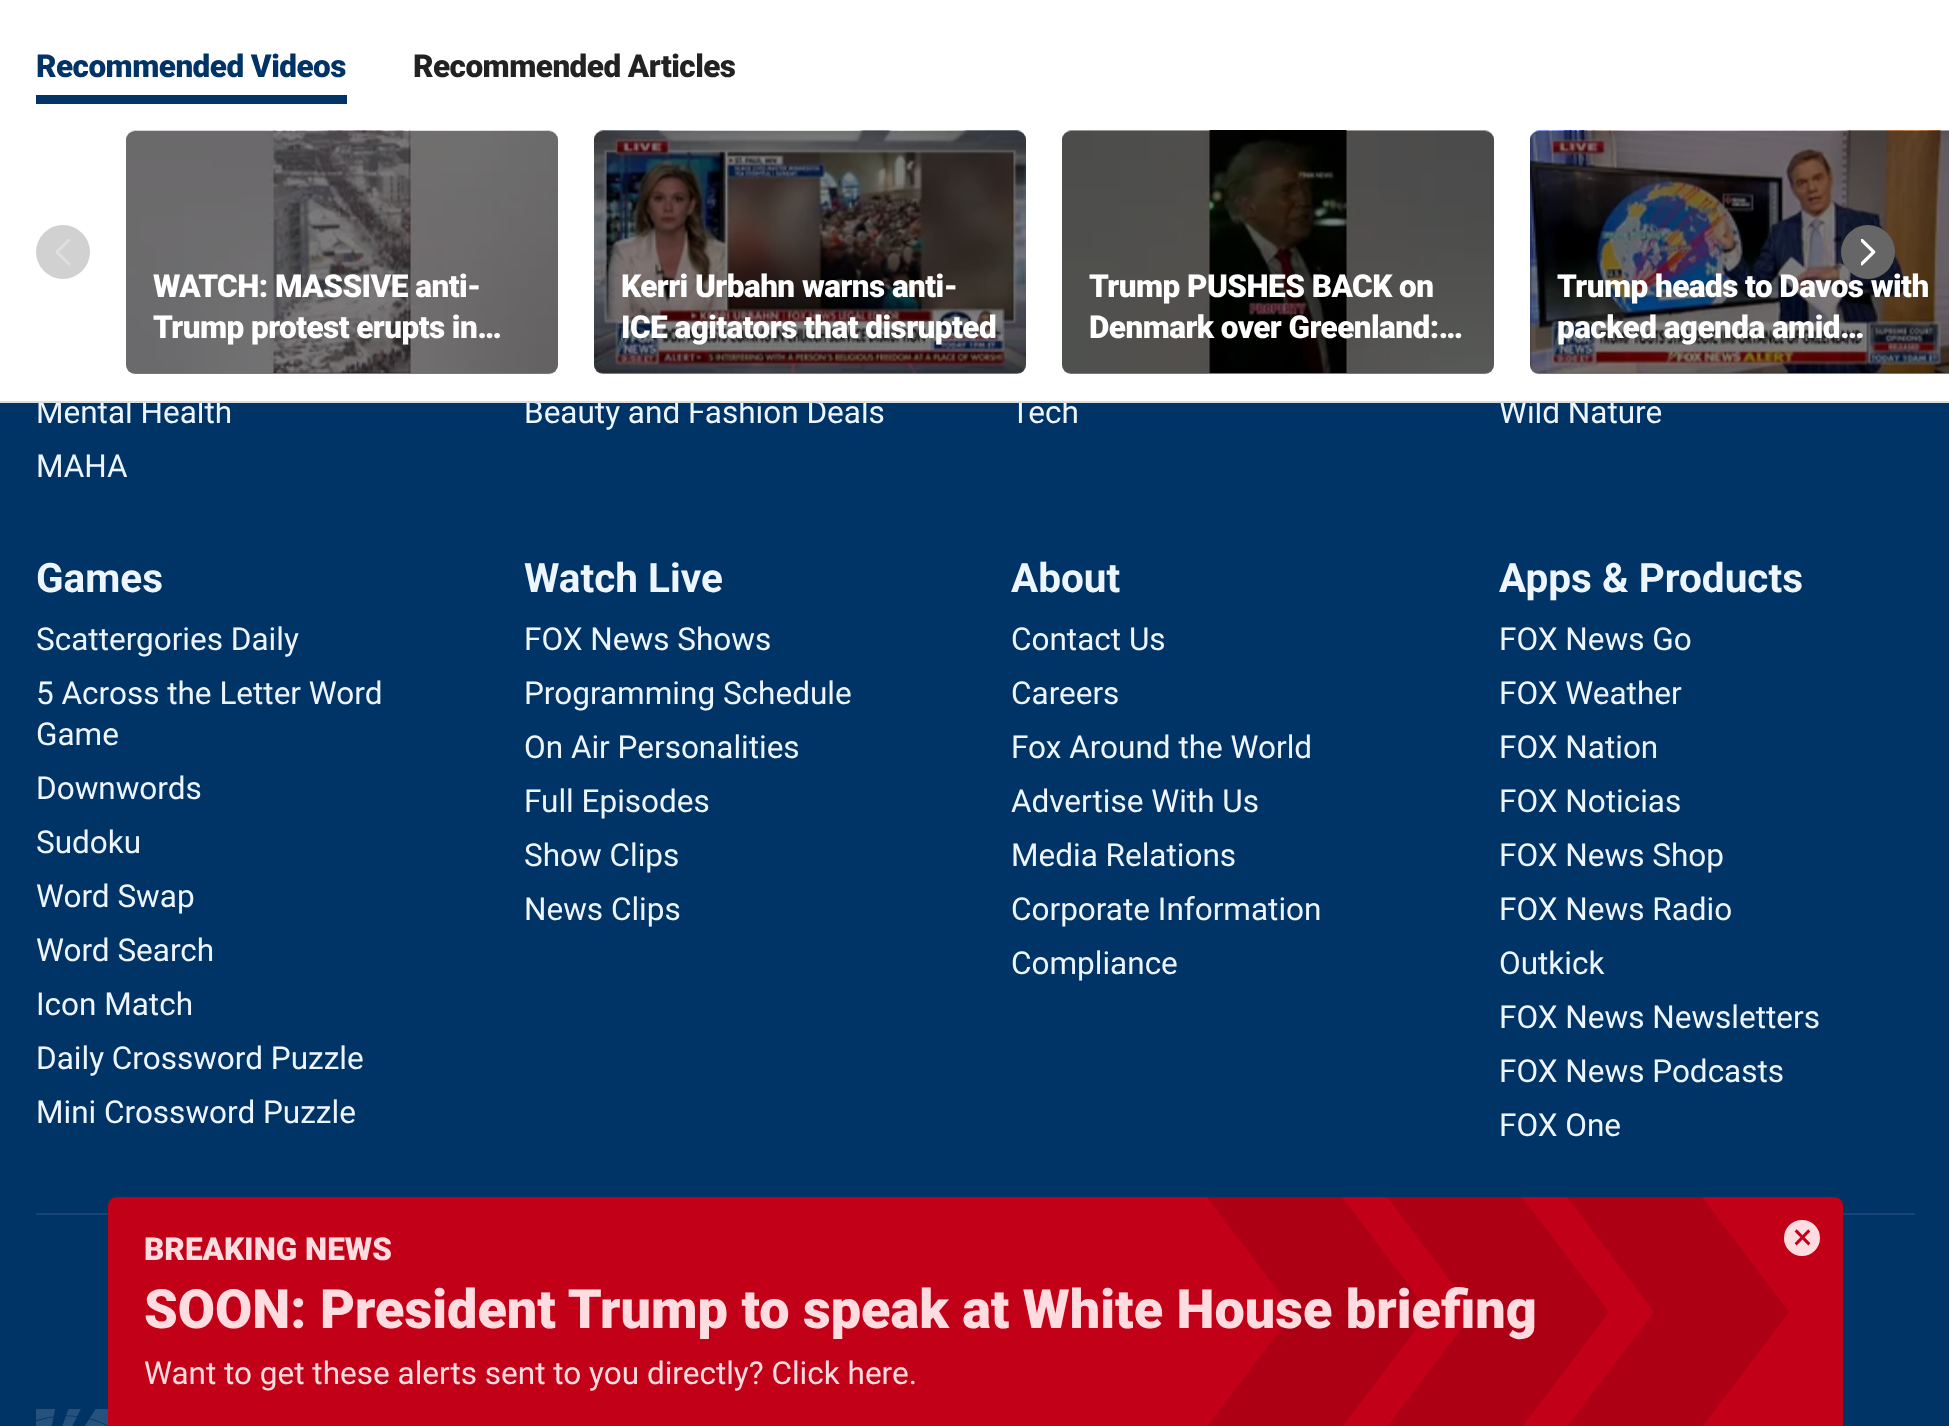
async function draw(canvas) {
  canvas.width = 1949;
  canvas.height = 1426;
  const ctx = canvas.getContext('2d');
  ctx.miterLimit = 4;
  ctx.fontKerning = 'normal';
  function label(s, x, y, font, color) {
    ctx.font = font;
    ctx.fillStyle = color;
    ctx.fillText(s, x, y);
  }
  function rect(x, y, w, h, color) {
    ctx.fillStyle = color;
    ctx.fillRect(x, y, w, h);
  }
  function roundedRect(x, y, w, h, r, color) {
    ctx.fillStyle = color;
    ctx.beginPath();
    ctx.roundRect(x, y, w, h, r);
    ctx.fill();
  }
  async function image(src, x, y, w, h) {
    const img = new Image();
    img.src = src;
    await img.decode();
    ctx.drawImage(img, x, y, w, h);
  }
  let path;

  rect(0, 0, 1949, 1426, '#036');
  label('Mental Health', 36, 423, '31.5px Roboto', '#edf6ff');
  label('Beauty and Fashion Deals', 524, 423, '31.5px Roboto', '#edf6ff');
  label('Tech', 1011, 423, '31.5px Roboto', '#edf6ff');
  label('Wild Nature', 1499, 423, '31.5px Roboto', '#edf6ff');
  rect(0, 0, 1949, 401, '#fff');
  ctx.letterSpacing = '-0.55px';
  label('Recommended Videos', 36, 77, '900 31.5px Roboto', '#036');
  rect(36, 95, 311, 9, '#036');
  label('Recommended Articles', 413, 77, '900 31.5px Roboto', '#222');
  rect(0, 401, 1949, 2, '#ddd');
  ctx.fillStyle = '#d1d1d1';
  ctx.beginPath();
  ctx.arc(63, 252, 27, 0, 2 * Math.PI);
  ctx.fill();
  await image('assets/img1.png', 56, 239, 15, 27);
  ctx.fillStyle = '#f4f4f4';
  path = new Path2D('M1539 131H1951V374H1539C1534 374 1530 370 1530 365V140C1530 135 1534 131 1539 131Z');
  ctx.fill(path);
  await image('assets/img6.png', 1530, 130, 419, 243);
  ctx.fillStyle = '#00000080';
  path = new Path2D('M1539 131H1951V374H1539C1534 374 1530 370 1530 365V140C1530 135 1534 131 1539 131Z');
  ctx.fill(path);
  label('Trump heads to Davos with', 1557, 297, '900 31.5px Roboto', '#fff');
  ctx.fillStyle = '#666';
  ctx.beginPath();
  ctx.arc(1868, 252, 27, 0, 2 * Math.PI);
  ctx.fill();
  await image('assets/img2.png', 1861, 239, 15, 27);
  roundedRect(126, 131, 432, 243, 9, '#f4f4f4');
  await image('assets/img3.png', 126, 130, 432, 243);
  roundedRect(126, 131, 432, 243, 9, '#00000080');
  label('WATCH: MASSIVE anti-', 153, 297, '900 31.5px Roboto', '#fff');
  label('Trump protest erupts in…', 153, 338, '900 31.5px Roboto', '#fff');
  roundedRect(594, 131, 432, 243, 9, '#f4f4f4');
  await image('assets/img4.png', 594, 130, 432, 243);
  roundedRect(594, 131, 432, 243, 9, '#00000080');
  label('Kerri Urbahn warns anti-', 621, 297, '900 31.5px Roboto', '#fff');
  label('ICE agitators that disrupted', 621, 338, '900 31.5px Roboto', '#fff');
  roundedRect(1062, 131, 432, 243, 9, '#f4f4f4');
  await image('assets/img5.png', 1062, 130, 432, 243);
  roundedRect(1062, 131, 432, 243, 9, '#00000080');
  label('Trump PUSHES BACK on', 1089, 297, '900 31.5px Roboto', '#fff');
  label('Denmark over Greenland:…', 1089, 338, '900 31.5px Roboto', '#fff');
  label('packed agenda amid…', 1557, 338, '900 31.5px Roboto', '#fff');
  rect(36, 1213, 1879, 2, '#174676');
  ctx.fillStyle = '#c20017';
  path = new Path2D('M117 1197H1834C1839 1197 1843 1201 1843 1206V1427H108V1206C108 1201 112 1197 117 1197Z');
  ctx.fill(path);
  ctx.fillStyle = '#ae0015';
  path = new Path2D('M1702 1197L1789 1312L1702 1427H1519V1197Z');
  ctx.fill(path);
  ctx.fillStyle = '#c20017';
  path = new Path2D('M1567 1197L1654 1312L1567 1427H1384V1197Z');
  ctx.fill(path);
  ctx.fillStyle = '#ae0015';
  path = new Path2D('M1522 1197L1609 1312L1522 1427H1339V1197Z');
  ctx.fill(path);
  ctx.fillStyle = '#c20017';
  path = new Path2D('M1387 1197L1474 1312L1387 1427H1204V1197Z');
  ctx.fill(path);
  ctx.fillStyle = '#ae0015';
  path = new Path2D('M1342 1197L1429 1312L1342 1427H1159V1197Z');
  ctx.fill(path);
  ctx.fillStyle = '#c20017';
  path = new Path2D('M1207 1197L1294 1312L1207 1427H1024V1197Z');
  ctx.fill(path);
  ctx.letterSpacing = '0px';
  label('BREAKING NEWS', 144, 1260, '900 31.5px Roboto', '#ffdce0');
  label('SOON: President Trump to speak at White House briefing', 144, 1328, '900 54px Roboto', '#ffdce0');
  label('Want to get these alerts sent to you directly? Click here.', 144, 1384, '31.5px Roboto', '#ffdce0');
  ctx.beginPath();
  ctx.arc(1802, 1238, 18, 0, 2 * Math.PI);
  ctx.fill();
  label('×', 1793, 1249, '36px Roboto', '#c20017');
  label('MAHA', 36, 477, '31.5px Roboto', '#edf6ff');
  label('Games', 36, 592, 'bold 40.5px Roboto', '#edf6ff');
  label('Scattergories Daily', 36, 650, '31.5px Roboto', '#edf6ff');
  label('5 Across the Letter Word', 36, 704, '31.5px Roboto', '#edf6ff');
  label('Game', 36, 745, '31.5px Roboto', '#edf6ff');
  label('Downwords', 36, 799, '31.5px Roboto', '#edf6ff');
  label('Sudoku', 36, 853, '31.5px Roboto', '#edf6ff');
  label('Word Swap', 36, 907, '31.5px Roboto', '#edf6ff');
  label('Word Search', 36, 961, '31.5px Roboto', '#edf6ff');
  label('Icon Match', 36, 1015, '31.5px Roboto', '#edf6ff');
  label('Daily Crossword Puzzle', 36, 1069, '31.5px Roboto', '#edf6ff');
  label('Mini Crossword Puzzle', 36, 1123, '31.5px Roboto', '#edf6ff');
  label('Watch Live', 524, 592, 'bold 40.5px Roboto', '#edf6ff');
  label('FOX News Shows', 524, 650, '31.5px Roboto', '#edf6ff');
  label('Programming Schedule', 524, 704, '31.5px Roboto', '#edf6ff');
  label('On Air Personalities', 524, 758, '31.5px Roboto', '#edf6ff');
  label('Full Episodes', 524, 812, '31.5px Roboto', '#edf6ff');
  label('Show Clips', 524, 866, '31.5px Roboto', '#edf6ff');
  label('News Clips', 524, 920, '31.5px Roboto', '#edf6ff');
  label('About', 1011, 592, 'bold 40.5px Roboto', '#edf6ff');
  label('Contact Us', 1011, 650, '31.5px Roboto', '#edf6ff');
  label('Careers', 1011, 704, '31.5px Roboto', '#edf6ff');
  label('Fox Around the World', 1011, 758, '31.5px Roboto', '#edf6ff');
  label('Advertise With Us', 1011, 812, '31.5px Roboto', '#edf6ff');
  label('Media Relations', 1011, 866, '31.5px Roboto', '#edf6ff');
  label('Corporate Information', 1011, 920, '31.5px Roboto', '#edf6ff');
  label('Compliance', 1011, 974, '31.5px Roboto', '#edf6ff');
  label('Apps & Products', 1499, 592, 'bold 40.5px Roboto', '#edf6ff');
  label('FOX News Go', 1499, 650, '31.5px Roboto', '#edf6ff');
  label('FOX Weather', 1499, 704, '31.5px Roboto', '#edf6ff');
  label('FOX Nation', 1499, 758, '31.5px Roboto', '#edf6ff');
  label('FOX Noticias', 1499, 812, '31.5px Roboto', '#edf6ff');
  label('FOX News Shop', 1499, 866, '31.5px Roboto', '#edf6ff');
  label('FOX News Radio', 1499, 920, '31.5px Roboto', '#edf6ff');
  label('Outkick', 1499, 974, '31.5px Roboto', '#edf6ff');
  label('FOX News Newsletters', 1499, 1028, '31.5px Roboto', '#edf6ff');
  label('FOX News Podcasts', 1499, 1082, '31.5px Roboto', '#edf6ff');
  label('FOX One', 1499, 1136, '31.5px Roboto', '#edf6ff');
  await image('assets/img7.png', 36, 1409, 72, 17);
}

draw(document.querySelector('canvas'));
